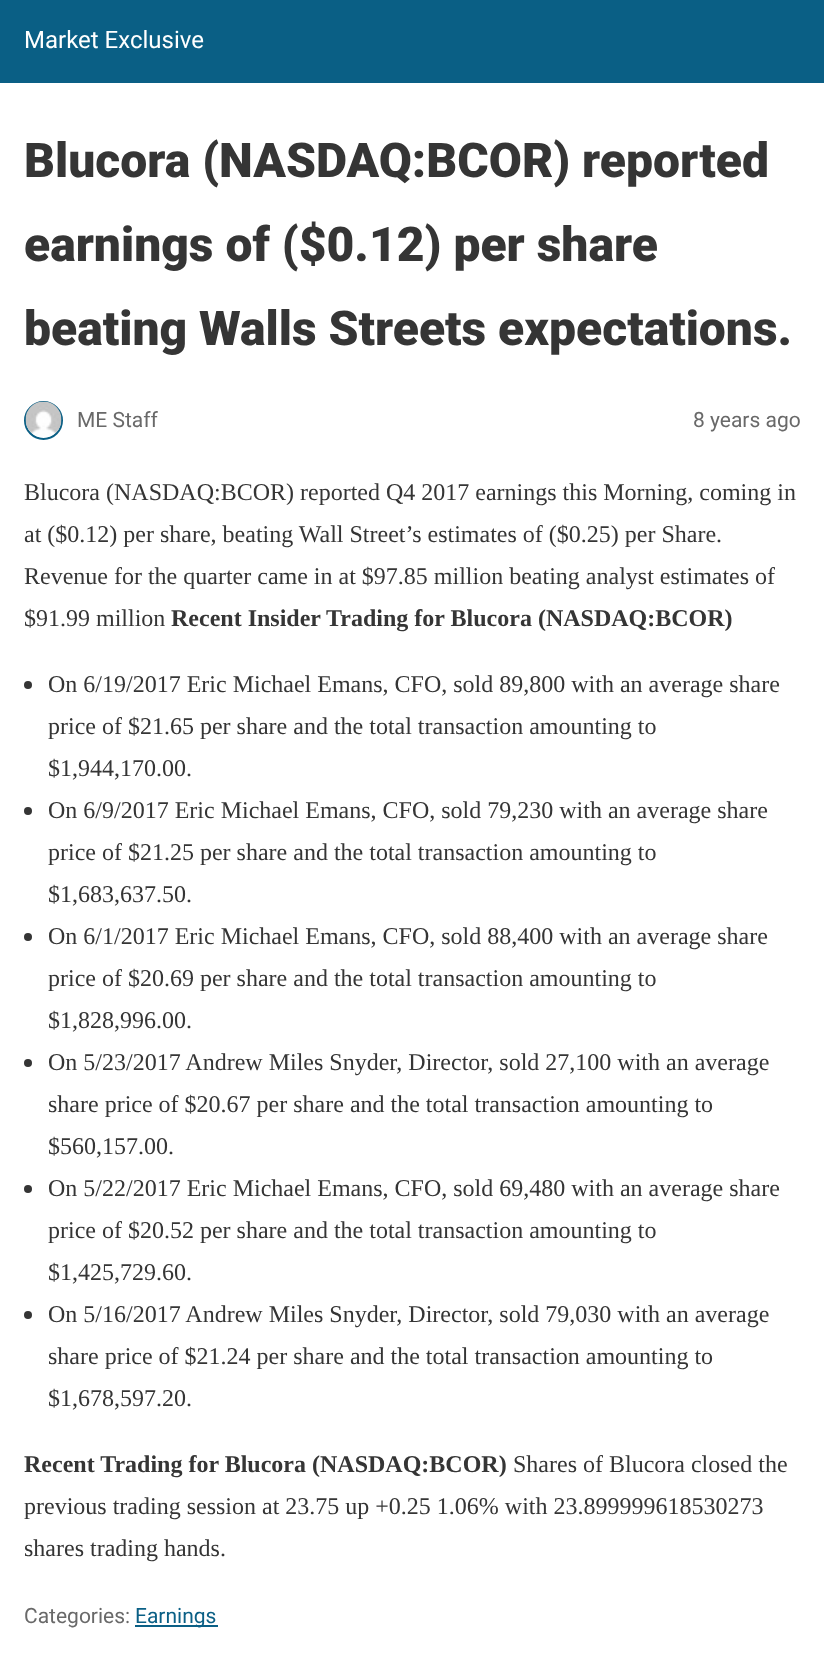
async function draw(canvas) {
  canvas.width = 824;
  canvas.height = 1662;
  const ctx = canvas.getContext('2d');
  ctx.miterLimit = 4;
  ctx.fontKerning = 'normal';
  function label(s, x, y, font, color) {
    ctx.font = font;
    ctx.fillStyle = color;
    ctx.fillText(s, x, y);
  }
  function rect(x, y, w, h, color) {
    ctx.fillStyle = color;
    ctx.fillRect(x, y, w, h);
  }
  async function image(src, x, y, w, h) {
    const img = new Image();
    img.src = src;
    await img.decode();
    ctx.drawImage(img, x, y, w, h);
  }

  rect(0, 0, 824, 1662, '#fff');
  rect(0, 0, 824, 83, '#0a5f85');
  label('Market Exclusive', 24, 48, '24px Roboto', '#fff');
  label('Blucora (NASDAQ:BCOR) reported', 24, 177, '900 48px Roboto', '#353535');
  label('earnings of ($0.12) per share', 24, 261, '900 48px Roboto', '#353535');
  label('beating Walls Streets expectations.', 24, 345, '900 48px Roboto', '#353535');
  ctx.beginPath();
  ctx.arc(43.5, 420.5, 18.5, 0, 2 * Math.PI);
  ctx.strokeStyle = '#0a5f85';
  ctx.lineWidth = 2;
  ctx.stroke();
  await image('assets/img1.png', 25, 401, 37, 37);
  label('ME Staff', 77, 427, '21px Roboto', '#696969');
  label('8 years ago', 693, 427, '21px Roboto', '#696969');
  label('Blucora (NASDAQ:BCOR) reported Q4 2017 earnings this Morning, coming in', 24, 500, '24px Liberation Serif', '#353535');
  label('at ($0.12) per share, beating Wall Street’s estimates of ($0.25) per Share.', 24, 542, '24px Liberation Serif', '#353535');
  label('Revenue for the quarter came in at $97.85 million beating analyst estimates of', 24, 584, '24px Liberation Serif', '#353535');
  label('$91.99 million', 24, 626, '24px Liberation Serif', '#353535');
  label('Recent Insider Trading for Blucora (NASDAQ:BCOR)', 171, 626, 'bold 24px Liberation Serif', '#353535');
  ctx.beginPath();
  ctx.arc(28, 685, 4, 0, 2 * Math.PI);
  ctx.fill();
  label('On 6/19/2017 Eric Michael Emans, CFO, sold 89,800 with an average share', 48, 692, '24px Liberation Serif', '#353535');
  label('price of $21.65 per share and the total transaction amounting to', 48, 734, '24px Liberation Serif', '#353535');
  label('$1,944,170.00.', 48, 776, '24px Liberation Serif', '#353535');
  ctx.beginPath();
  ctx.arc(28, 811, 4, 0, 2 * Math.PI);
  ctx.fill();
  label('On 6/9/2017 Eric Michael Emans, CFO, sold 79,230 with an average share', 48, 818, '24px Liberation Serif', '#353535');
  label('price of $21.25 per share and the total transaction amounting to', 48, 860, '24px Liberation Serif', '#353535');
  label('$1,683,637.50.', 48, 902, '24px Liberation Serif', '#353535');
  ctx.beginPath();
  ctx.arc(28, 937, 4, 0, 2 * Math.PI);
  ctx.fill();
  label('On 6/1/2017 Eric Michael Emans, CFO, sold 88,400 with an average share', 48, 944, '24px Liberation Serif', '#353535');
  label('price of $20.69 per share and the total transaction amounting to', 48, 986, '24px Liberation Serif', '#353535');
  label('$1,828,996.00.', 48, 1028, '24px Liberation Serif', '#353535');
  ctx.beginPath();
  ctx.arc(28, 1063, 4, 0, 2 * Math.PI);
  ctx.fill();
  label('On 5/23/2017 Andrew Miles Snyder, Director, sold 27,100 with an average', 48, 1070, '24px Liberation Serif', '#353535');
  label('share price of $20.67 per share and the total transaction amounting to', 48, 1112, '24px Liberation Serif', '#353535');
  label('$560,157.00.', 48, 1154, '24px Liberation Serif', '#353535');
  ctx.beginPath();
  ctx.arc(28, 1189, 4, 0, 2 * Math.PI);
  ctx.fill();
  label('On 5/22/2017 Eric Michael Emans, CFO, sold 69,480 with an average share', 48, 1196, '24px Liberation Serif', '#353535');
  label('price of $20.52 per share and the total transaction amounting to', 48, 1238, '24px Liberation Serif', '#353535');
  label('$1,425,729.60.', 48, 1280, '24px Liberation Serif', '#353535');
  ctx.beginPath();
  ctx.arc(28, 1315, 4, 0, 2 * Math.PI);
  ctx.fill();
  label('On 5/16/2017 Andrew Miles Snyder, Director, sold 79,030 with an average', 48, 1322, '24px Liberation Serif', '#353535');
  label('share price of $21.24 per share and the total transaction amounting to', 48, 1364, '24px Liberation Serif', '#353535');
  label('$1,678,597.20.', 48, 1406, '24px Liberation Serif', '#353535');
  label('Recent Trading for Blucora (NASDAQ:BCOR)', 24, 1472, 'bold 24px Liberation Serif', '#353535');
  label('Shares of Blucora closed the', 513, 1472, '24px Liberation Serif', '#353535');
  label('previous trading session at 23.75 up +0.25 1.06% with 23.899999618530273', 24, 1514, '24px Liberation Serif', '#353535');
  label('shares trading hands.', 24, 1556, '24px Liberation Serif', '#353535');
  label('Categories:', 24, 1623, '21px Roboto', '#696969');
  rect(135, 1625, 83, 2, '#0a5f85');
  label('Earnings', 135, 1623, '21px Roboto', '#0a5f85');
}

draw(document.querySelector('canvas'));
